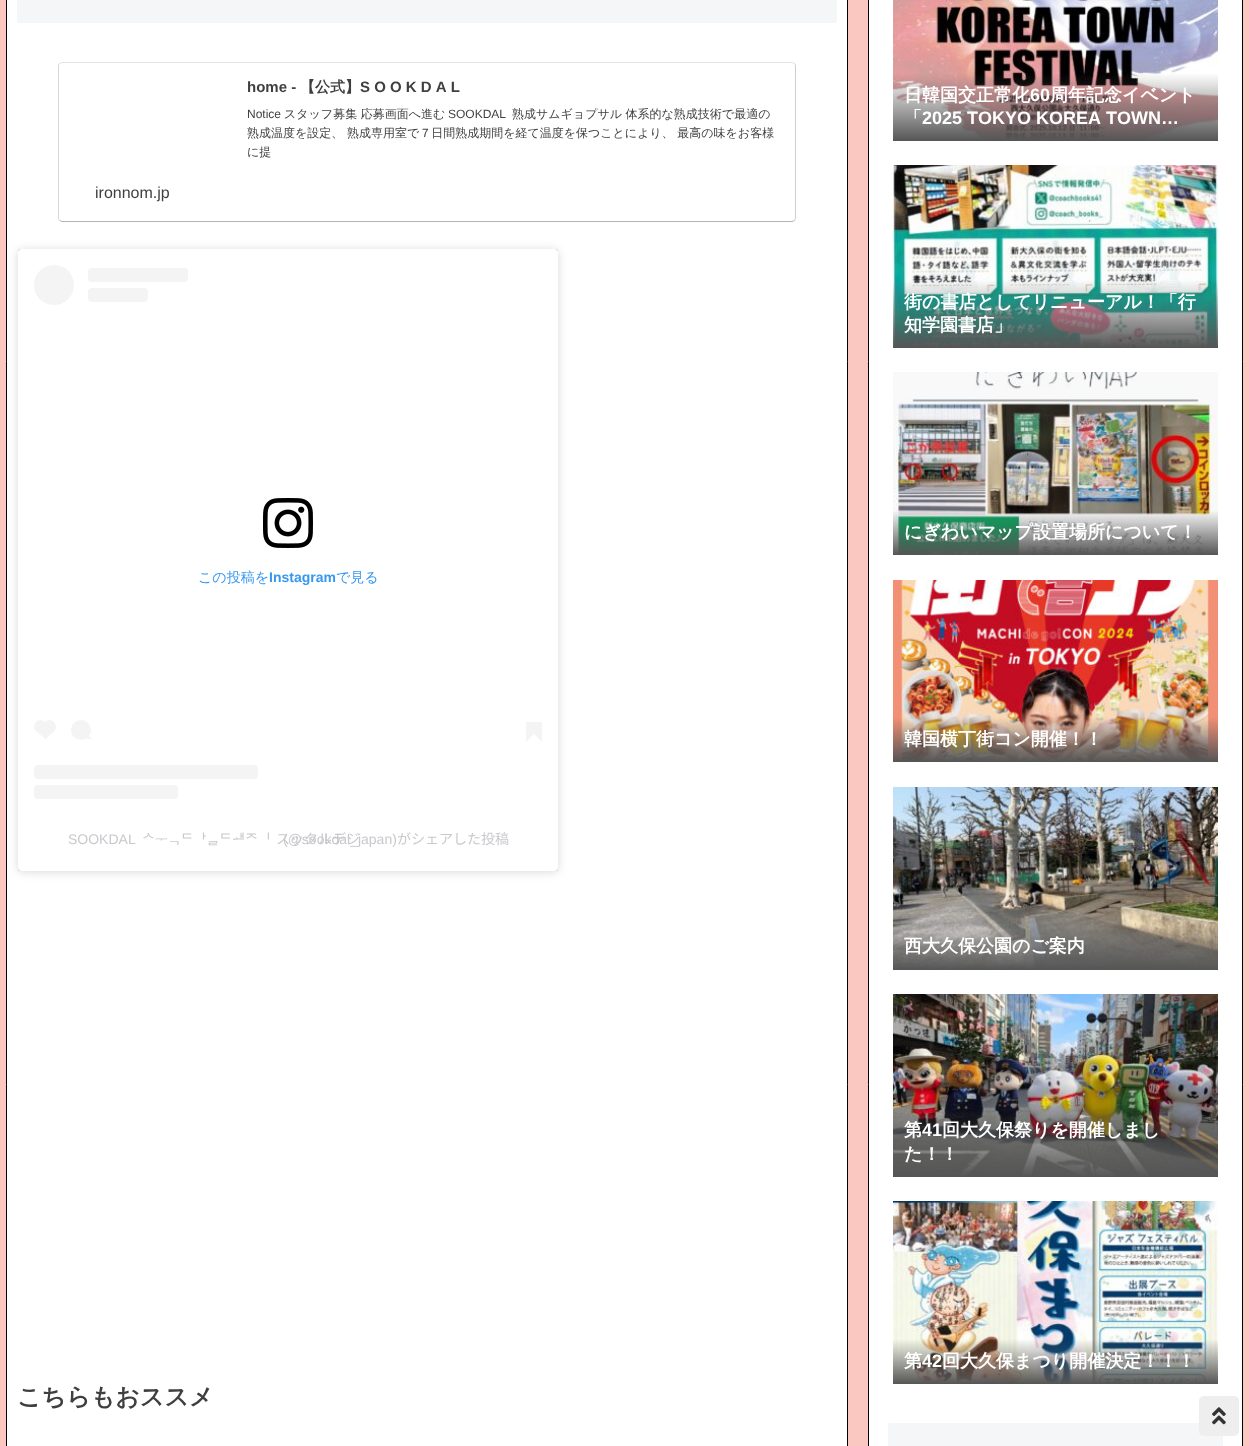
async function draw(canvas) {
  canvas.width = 1249;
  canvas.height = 1446;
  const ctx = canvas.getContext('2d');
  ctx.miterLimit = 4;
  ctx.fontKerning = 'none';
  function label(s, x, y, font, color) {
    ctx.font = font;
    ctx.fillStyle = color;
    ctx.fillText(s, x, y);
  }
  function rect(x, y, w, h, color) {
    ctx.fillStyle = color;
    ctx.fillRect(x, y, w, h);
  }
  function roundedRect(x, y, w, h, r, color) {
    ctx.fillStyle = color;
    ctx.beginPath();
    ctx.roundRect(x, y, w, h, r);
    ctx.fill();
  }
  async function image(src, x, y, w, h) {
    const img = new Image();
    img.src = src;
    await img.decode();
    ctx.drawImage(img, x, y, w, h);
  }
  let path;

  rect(0, 0, 1249, 1446, '#fac7c1');
  ctx.fillStyle = '#fff';
  ctx.beginPath();
  ctx.rect(6.5, -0.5, 841, 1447);
  ctx.fill();
  ctx.strokeStyle = '#000';
  ctx.stroke();
  roundedRect(17, -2, 820, 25, 2, '#f5f6f7');
  path = new Path2D('M59.5 63.5L62 62.5H792L794.5 63.5');
  ctx.strokeStyle = '#e3e3e3';
  ctx.stroke(path);
  path = new Path2D('M794.5 63.5C795 64 795.5 65 795.5 66V218C795.5 219 795 220 794.5 220.5');
  ctx.strokeStyle = '#cecece';
  ctx.stroke(path);
  path = new Path2D('M794.5 220.5L792 221.5H62L59.5 220.5');
  ctx.strokeStyle = '#b4b4b4';
  ctx.stroke(path);
  path = new Path2D('M59.5 220.5C59 220 58.5 219 58.5 218V66C58.5 65 59 64 59.5 63.5');
  ctx.strokeStyle = '#d6d6d6';
  ctx.stroke(path);
  label('home -', 247, 92, 'bold 15px Liberation Sans', '#3f3f3f');
  label('【公式】', 300, 92, 'bold 15px WenQuanYi Zen Hei', '#3f3f3f');
  label('S O O K D A L', 360, 92, 'bold 15px Liberation Sans', '#3f3f3f');
  label('Notice', 247, 118, '12px Liberation Sans', '#3f3f3f');
  label('スタッフ募集 応募画面へ進む', 284, 118, '500 12px WenQuanYi Zen Hei', '#3f3f3f');
  label('SOOKDAL', 448, 118, '12px Liberation Sans', '#3f3f3f');
  label('熟成サムギョプサル 体系的な熟成技術で最適の', 512, 118, '500 12px WenQuanYi Zen Hei', '#3f3f3f');
  label('熟成温度を設定、 熟成専用室で７日間熟成期間を経て温度を保つことにより、 最高の味をお客様', 247, 137, '500 12px WenQuanYi Zen Hei', '#3f3f3f');
  label('に提', 247, 156, '500 12px WenQuanYi Zen Hei', '#3f3f3f');
  label('ironnom.jp', 95, 198, '16px Liberation Sans', '#3f3f3f');
  ctx.fillStyle = '#00000026';
  ctx.filter = 'blur(5px)';
  ctx.beginPath();
  ctx.roundRect(18, 250, 540, 622, 3);
  ctx.fill();
  ctx.filter = 'none';
  ctx.fillStyle = '#00000080';
  ctx.filter = 'blur(0.5px)';
  ctx.beginPath();
  ctx.roundRect(18, 249, 540, 622, 3);
  ctx.fill();
  ctx.filter = 'none';
  roundedRect(18, 249, 540, 622, 3, '#fff');
  ctx.fillStyle = '#f4f4f4';
  ctx.beginPath();
  ctx.arc(54, 285, 20, 0, 2 * Math.PI);
  ctx.fill();
  roundedRect(88, 268, 100, 14, 4, '#f4f4f4');
  roundedRect(88, 288, 60, 14, 4, '#f4f4f4');
  await image('assets/img1.png', 263, 498, 50, 50);
  label('この投稿を', 198, 582, '500 14px WenQuanYi Zen Hei', '#3897f0');
  label('Instagram', 269, 582, 'bold 14px Liberation Sans', '#3897f0');
  label('で見る', 336, 582, '500 14px WenQuanYi Zen Hei', '#3897f0');
  ctx.fillStyle = '#f4f4f4';
  ctx.beginPath();
  ctx.arc(40.5, 726.5, 6.5, 0, 2 * Math.PI);
  ctx.fill();
  path = new Path2D('M36.5 731L45.5 722L54 731L45.5 739.5Z');
  ctx.fill(path);
  ctx.beginPath();
  ctx.arc(49.5, 726.5, 6.5, 0, 2 * Math.PI);
  ctx.fill();
  ctx.beginPath();
  ctx.arc(81, 730, 10, 0, 2 * Math.PI);
  ctx.fill();
  path = new Path2D('M86 738.5L88 735L92.5 739.5Z');
  ctx.fill(path);
  rect(526, 722, 16, 12, '#f4f4f4');
  path = new Path2D('M526 734H534L526 742Z');
  ctx.fill(path);
  path = new Path2D('M534 734H542V742Z');
  ctx.fill(path);
  roundedRect(34, 765, 224, 14, 4, '#f4f4f4');
  roundedRect(34, 785, 144, 14, 4, '#f4f4f4');
  label('SOOKDAL', 68, 844, '14px Liberation Sans', '#c9c8cd');
  ctx.wordSpacing = '2px';
  label('숙달돼지 スッタルデジ', 142, 844, '14px Noto Sans CJK JP', '#c9c8cd');
  ctx.wordSpacing = '0px';
  label('(@sookdal_japan)', 283, 844, '14px Liberation Sans', '#c9c8cd');
  label('がシェアした投稿', 397, 844, '14px Noto Sans CJK JP', '#c9c8cd');
  label('こちらもおススメ', 17, 1405, 'bold 24px WenQuanYi Zen Hei', '#3f3f3f');
  ctx.fillStyle = '#fff';
  ctx.beginPath();
  ctx.rect(868.5, -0.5, 374, 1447);
  ctx.fill();
  ctx.strokeStyle = '#000';
  ctx.stroke();
  await image('assets/img2.png', 893, 0, 325, 141);
  label('日韓国交正常化', 904, 101, 'bold 18px WenQuanYi Zen Hei', '#fff');
  label('60', 1030, 101, 'bold 18px Liberation Sans', '#fff');
  label('周年記念イベント', 1050, 101, 'bold 18px WenQuanYi Zen Hei', '#fff');
  label('「', 904, 124, 'bold 18px WenQuanYi Zen Hei', '#fff');
  label('2025 TOKYO KOREA TOWN…', 922, 124, 'bold 18px Liberation Sans', '#fff');
  await image('assets/img3.png', 893, 165, 325, 183);
  label('街の書店としてリニューアル！「行', 904, 308, 'bold 18px WenQuanYi Zen Hei', '#fff');
  label('知学園書店」', 904, 331, 'bold 18px WenQuanYi Zen Hei', '#fff');
  await image('assets/img4.png', 893, 372, 325, 183);
  label('にぎわいマップ設置場所について！', 904, 538, 'bold 18px WenQuanYi Zen Hei', '#fff');
  await image('assets/img5.png', 893, 580, 325, 182);
  label('韓国横丁街コン開催！！', 904, 745, 'bold 18px WenQuanYi Zen Hei', '#fff');
  await image('assets/img6.png', 893, 787, 325, 183);
  label('西大久保公園のご案内', 904, 952, 'bold 18px WenQuanYi Zen Hei', '#fff');
  await image('assets/img7.png', 893, 994, 325, 183);
  label('第', 904, 1136, 'bold 18px WenQuanYi Zen Hei', '#fff');
  label('41', 922, 1136, 'bold 18px Liberation Sans', '#fff');
  label('回大久保祭りを開催しまし', 942, 1136, 'bold 18px WenQuanYi Zen Hei', '#fff');
  label('た！！', 904, 1160, 'bold 18px WenQuanYi Zen Hei', '#fff');
  await image('assets/img8.png', 893, 1201, 325, 183);
  label('第', 904, 1367, 'bold 18px WenQuanYi Zen Hei', '#fff');
  label('42', 922, 1367, 'bold 18px Liberation Sans', '#fff');
  label('回大久保まつり開催決定！！！', 942, 1367, 'bold 18px WenQuanYi Zen Hei', '#fff');
  roundedRect(888, 1423, 335, 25, 2, '#f5f6f7');
  roundedRect(1199, 1396, 40, 40, 5, '#eee');
  await image('assets/img9.png', 1212, 1407, 14, 18);
}

draw(document.querySelector('canvas'));
